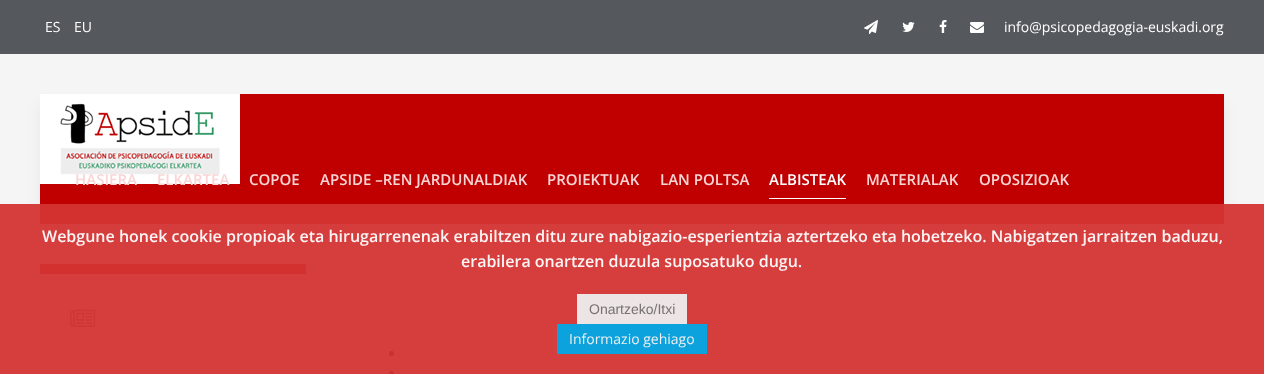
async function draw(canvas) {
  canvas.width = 1264;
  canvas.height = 374;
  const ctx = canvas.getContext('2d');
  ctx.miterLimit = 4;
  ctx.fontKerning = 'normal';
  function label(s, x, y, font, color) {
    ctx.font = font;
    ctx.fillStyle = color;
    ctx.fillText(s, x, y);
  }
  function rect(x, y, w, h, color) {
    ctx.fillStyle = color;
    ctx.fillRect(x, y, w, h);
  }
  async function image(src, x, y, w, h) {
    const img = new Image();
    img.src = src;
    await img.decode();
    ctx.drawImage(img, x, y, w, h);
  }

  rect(0, 0, 1264, 374, '#f5f5f5');
  rect(0, 0, 1264, 54, '#55595d');
  label('ES', 45, 32, '14px Open Sans', '#fff');
  label('EU', 74, 32, '14px Open Sans', '#fff');
  await image('assets/img1.png', 864, 20, 14, 14);
  await image('assets/img2.png', 902, 22, 13, 10);
  await image('assets/img3.png', 939, 20, 8, 13);
  await image('assets/img4.png', 970, 22, 14, 11);
  label('info@psicopedagogia-euskadi.org', 1004, 32, '14px Open Sans', '#fff');
  ctx.fillStyle = '#0000000d';
  ctx.filter = 'blur(7.5px)';
  ctx.beginPath();
  ctx.rect(40, 104, 1184, 130);
  ctx.fill();
  ctx.filter = 'none';
  rect(40, 94, 1184, 130, '#c00000');
  await image('assets/img5.png', 40, 94, 200, 90);
  label('HASIERA', 75, 185, '600 15px Open Sans', '#fad5d5');
  label('ELKARTEA', 157, 185, '600 15px Open Sans', '#fad5d5');
  label('COPOE', 249, 185, '600 15px Open Sans', '#fad5d5');
  label('APSIDE –REN JARDUNALDIAK', 320, 185, '600 15px Open Sans', '#fad5d5');
  label('PROIEKTUAK', 547, 185, '600 15px Open Sans', '#fad5d5');
  label('LAN POLTSA', 660, 185, '600 15px Open Sans', '#fad5d5');
  rect(769, 198, 77, 1, '#fff');
  label('ALBISTEAK', 769, 185, '600 15px Open Sans', '#fff');
  label('MATERIALAK', 866, 185, '600 15px Open Sans', '#fad5d5');
  label('OPOSIZIOAK', 979, 185, '600 15px Open Sans', '#fad5d5');
  rect(40, 274, 266, 100, '#fff');
  rect(40, 264, 266, 10, '#c00000');
  await image('assets/img6.png', 70, 309, 26, 18);
  rect(346, 264, 878, 110, '#fff');
  ctx.fillStyle = '#000';
  ctx.beginPath();
  ctx.arc(391.5, 353.5, 2.5, 0, 2 * Math.PI);
  ctx.fill();
  ctx.beginPath();
  ctx.arc(391.5, 373.5, 2.5, 0, 2 * Math.PI);
  ctx.fill();
  rect(0, 204, 1264, 170, '#d43333f2');
  label('Webgune honek cookie propioak eta hirugarrenenak erabiltzen ditu zure nabigazio-esperientzia aztertzeko eta hobetzeko. Nabigatzen jarraitzen baduzu,', 42, 242, '600 16px Open Sans', '#fdf5f5');
  label('erabilera onartzen duzula suposatuko dugu.', 461, 267, '600 16px Open Sans', '#fdf5f5');
  rect(577, 294, 110, 30, '#eeeeeef2');
  label('Onartzeko/Itxi', 589, 314, '14px Liberation Sans', '#767272');
  rect(557, 324, 150, 30, '#00a8e6f2');
  label('Informazio gehiago', 569, 344, '14px Open Sans', '#efefef');
}

draw(document.querySelector('canvas'));
